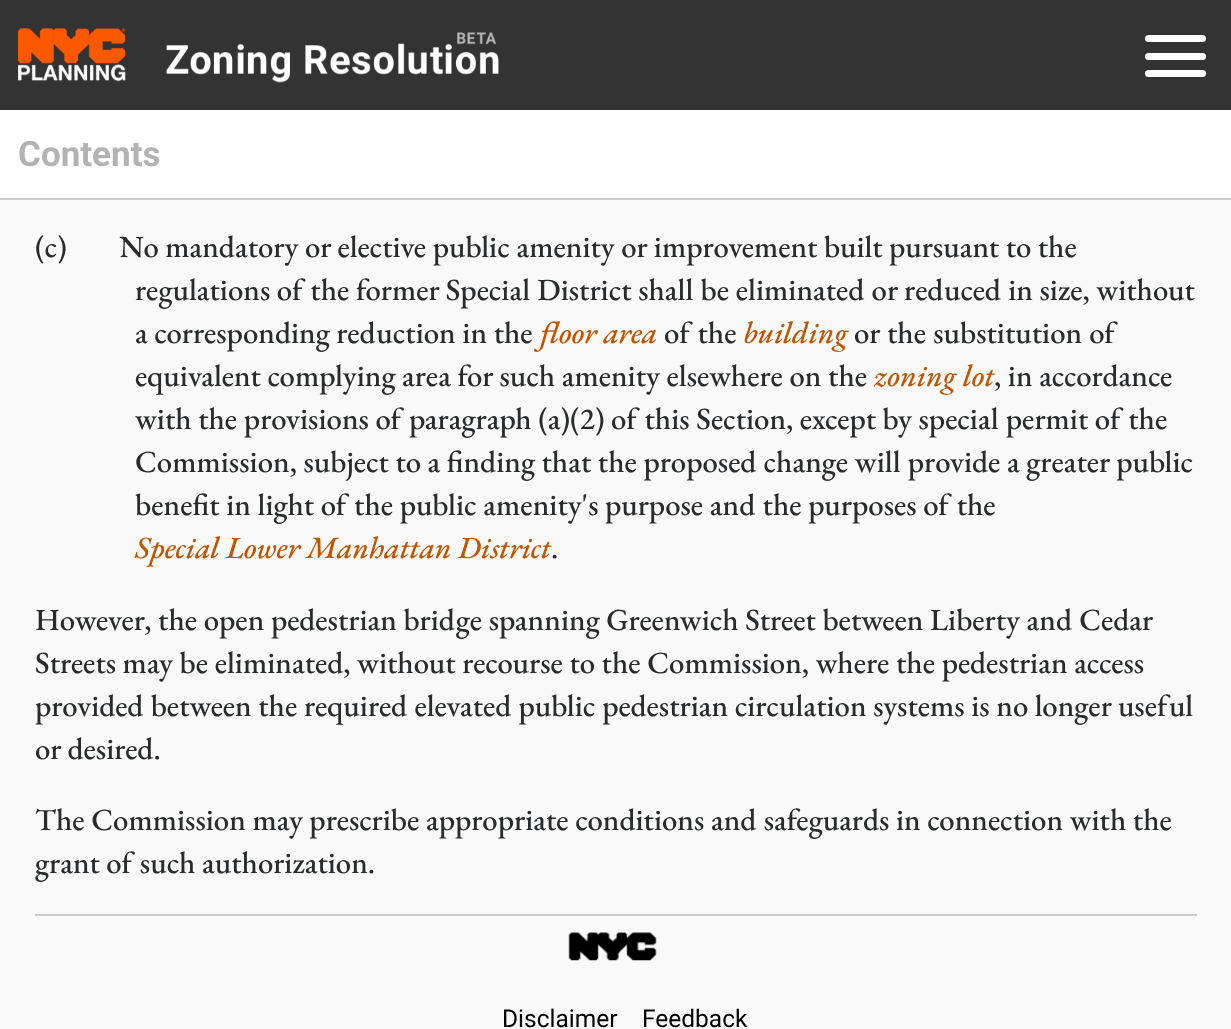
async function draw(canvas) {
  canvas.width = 1231;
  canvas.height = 1029;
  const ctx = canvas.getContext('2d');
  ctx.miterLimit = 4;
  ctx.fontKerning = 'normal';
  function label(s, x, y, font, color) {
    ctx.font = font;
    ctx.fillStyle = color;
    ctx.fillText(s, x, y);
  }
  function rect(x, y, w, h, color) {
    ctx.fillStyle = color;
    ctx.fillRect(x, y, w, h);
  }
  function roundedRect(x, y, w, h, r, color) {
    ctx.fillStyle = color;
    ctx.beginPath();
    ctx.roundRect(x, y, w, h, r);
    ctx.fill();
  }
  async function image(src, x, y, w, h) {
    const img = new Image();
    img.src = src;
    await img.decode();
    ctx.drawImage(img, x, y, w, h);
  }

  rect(0, 0, 1231, 1029, '#f9f9f9');
  rect(0, 0, 1231, 110, '#333');
  await image('assets/img1.png', 18, 28, 481, 55);
  roundedRect(1145, 53, 61, 7, 3.5, '#fff');
  roundedRect(1145, 35, 61, 7, 3.5, '#fff');
  roundedRect(1145, 70, 61, 7, 3.5, '#fff');
  rect(0, 110, 1231, 88, '#fff');
  rect(0, 198, 1231, 2, '#ccc');
  label('Contents', 18, 166, 'bold 35px Roboto', '#b3b3b3');
  label('(c)        No mandatory or elective public amenity or improvement built pursuant to the', 35, 257, '500 30.8px EB Garamond', '#292b2c');
  label('regulations of the former Special District shall be eliminated or reduced in size, without', 135, 300, '500 30.8px EB Garamond', '#292b2c');
  label('a corresponding reduction in the', 135, 343, '500 30.8px EB Garamond', '#292b2c');
  label('floor area', 540, 343, 'italic 500 30.8px EB Garamond', '#c25400');
  label('of the', 664, 343, '500 30.8px EB Garamond', '#292b2c');
  label('building', 743, 343, 'italic 500 30.8px EB Garamond', '#c25400');
  ctx.wordSpacing = '0.5px';
  label('or the substitution of', 854, 343, '500 30.8px EB Garamond', '#292b2c');
  ctx.wordSpacing = '0px';
  label('equivalent complying area for such amenity elsewhere on the', 135, 386, '500 30.8px EB Garamond', '#292b2c');
  label(', in accordance', 994, 386, '500 30.8px EB Garamond', '#292b2c');
  label('zoning lot', 874, 386, 'italic 500 30.8px EB Garamond', '#c25400');
  label('with the provisions of paragraph (a)(2) of this Section, except by special permit of the', 135, 429, '500 30.8px EB Garamond', '#292b2c');
  label('Commission, subject to a finding that the proposed change will provide a greater public', 135, 472, '500 30.8px EB Garamond', '#292b2c');
  label('benefit in light of the public amenity\'s purpose and the purposes of the', 135, 515, '500 30.8px EB Garamond', '#292b2c');
  label('.', 551, 558, '500 30.8px EB Garamond', '#292b2c');
  label('Special Lower Manhattan District', 135, 558, 'italic 500 30.8px EB Garamond', '#c25400');
  label('However, the open pedestrian bridge spanning Greenwich Street between Liberty and Cedar', 35, 630, '500 30.8px EB Garamond', '#292b2c');
  label('Streets may be eliminated, without recourse to the Commission, where the pedestrian access', 35, 673, '500 30.8px EB Garamond', '#292b2c');
  label('provided between the required elevated public pedestrian circulation systems is no longer useful', 35, 716, '500 30.8px EB Garamond', '#292b2c');
  label('or desired.', 35, 759, '500 30.8px EB Garamond', '#292b2c');
  label('The Commission may prescribe appropriate conditions and safeguards in connection with the', 35, 830, '500 30.8px EB Garamond', '#292b2c');
  label('grant of such authorization.', 35, 873, '500 30.8px EB Garamond', '#292b2c');
  rect(35, 914, 1162, 2, '#ccc');
  await image('assets/img2.png', 568, 932, 89, 29);
  label('Disclaimer', 502, 1027, '24.5px Roboto', '#000');
  label('Feedback', 642, 1027, '24.5px Roboto', '#000');
}

draw(document.querySelector('canvas'));
